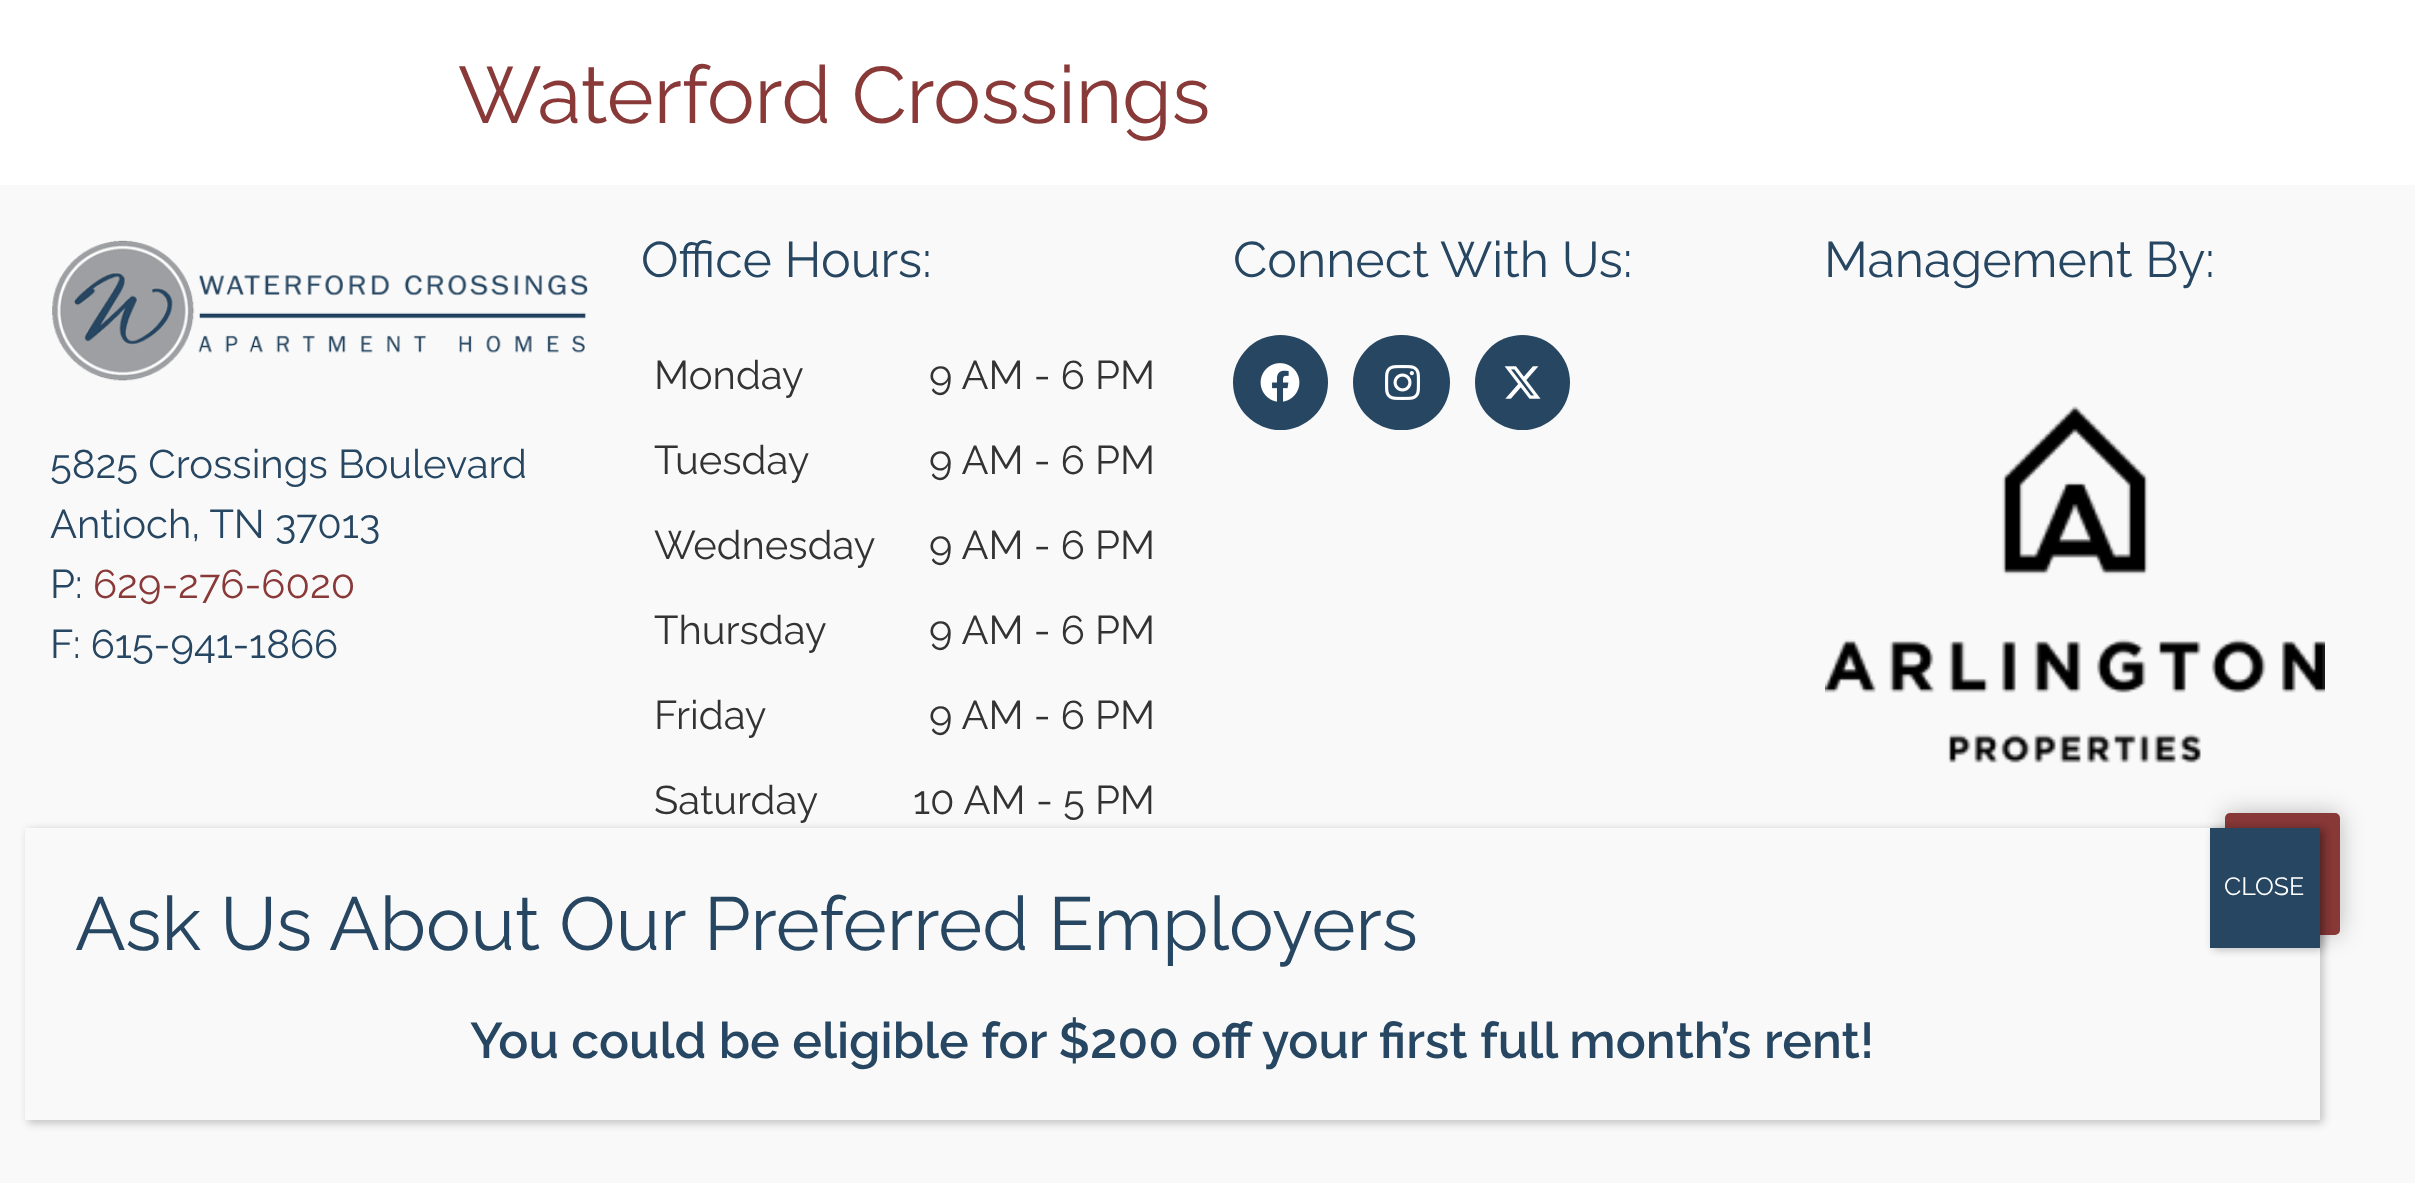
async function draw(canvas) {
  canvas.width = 2415;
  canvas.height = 1183;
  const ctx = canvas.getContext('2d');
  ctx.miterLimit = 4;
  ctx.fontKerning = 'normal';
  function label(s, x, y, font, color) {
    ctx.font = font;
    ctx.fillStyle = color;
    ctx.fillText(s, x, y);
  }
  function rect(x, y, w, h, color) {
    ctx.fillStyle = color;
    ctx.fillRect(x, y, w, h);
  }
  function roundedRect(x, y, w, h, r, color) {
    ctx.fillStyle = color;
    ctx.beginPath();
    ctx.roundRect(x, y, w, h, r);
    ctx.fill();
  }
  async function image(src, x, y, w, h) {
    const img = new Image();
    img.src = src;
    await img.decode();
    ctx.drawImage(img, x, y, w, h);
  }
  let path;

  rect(0, 0, 2415, 1183, '#fff');
  label('Waterford Crossings', 458, 123, '80px Raleway', '#883938');
  rect(0, 185, 2415, 998, '#f9f9f9');
  label('Office Hours:', 641, 277, '50px Raleway', '#264662');
  label('Monday', 654, 389, '40px Raleway', '#333');
  label('9 AM - 6 PM', 929, 389, '40px Raleway', '#333');
  label('Tuesday', 654, 474, '40px Raleway', '#333');
  label('9 AM - 6 PM', 929, 474, '40px Raleway', '#333');
  label('Wednesday', 654, 559, '40px Raleway', '#333');
  label('9 AM - 6 PM', 929, 559, '40px Raleway', '#333');
  label('Thursday', 654, 644, '40px Raleway', '#333');
  label('9 AM - 6 PM', 929, 644, '40px Raleway', '#333');
  label('Friday', 654, 729, '40px Raleway', '#333');
  label('9 AM - 6 PM', 929, 729, '40px Raleway', '#333');
  label('Saturday', 654, 814, '40px Raleway', '#333');
  label('10 AM - 5 PM', 913, 814, '40px Raleway', '#333');
  label('Connect With Us:', 1233, 277, '50px Raleway', '#264662');
  ctx.beginPath();
  ctx.arc(1280.5, 382.5, 47.5, 0, 2 * Math.PI);
  ctx.fill();
  await image('assets/img1.png', 1260, 363, 40, 39);
  roundedRect(1353, 335, 97, 95, 47.5, '#264662');
  await image('assets/img2.png', 1385, 365, 35, 35);
  ctx.beginPath();
  ctx.arc(1522.5, 382.5, 47.5, 0, 2 * Math.PI);
  ctx.fill();
  await image('assets/img3.png', 1504, 366, 37, 33);
  label('Management By:', 1824, 277, '50px Raleway', '#264662');
  await image('assets/img4.png', 1825, 406, 500, 357);
  await image('assets/img5.png', 52, 240, 536, 141);
  label('5825 Crossings Boulevard', 50, 478, '40px Raleway', '#264662');
  label('Antioch, TN 37013', 50, 538, '40px Raleway', '#264662');
  label('P:', 50, 598, '40px Raleway', '#264662');
  label('629-276-6020', 93, 598, '40px Raleway', '#883938');
  label('F: 615-941-1866', 50, 658, '40px Raleway', '#264662');
  ctx.save();
  path = new Path2D('M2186 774H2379V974H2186ZM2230 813H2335C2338 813 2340 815 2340 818V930C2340 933 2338 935 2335 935H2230C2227 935 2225 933 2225 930V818C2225 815 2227 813 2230 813Z');
  ctx.clip(path, 'evenodd');
  ctx.fillStyle = '#00000040';
  ctx.filter = 'blur(12.5px)';
  ctx.beginPath();
  ctx.roundRect(2225, 813, 115, 122, 5);
  ctx.fill();
  ctx.filter = 'none';
  ctx.restore();
  roundedRect(2225, 813, 115, 122, 5, '#670100c7');
  ctx.fillStyle = '#0202023b';
  ctx.filter = 'blur(4px)';
  ctx.beginPath();
  ctx.rect(28, 830, 2295, 293);
  ctx.fill();
  ctx.filter = 'none';
  rect(25, 828, 2295, 292, '#f9f9f9');
  ctx.fillStyle = '#0202023b';
  ctx.filter = 'blur(4px)';
  ctx.beginPath();
  ctx.rect(2213, 830, 110, 120);
  ctx.fill();
  ctx.filter = 'none';
  rect(2210, 828, 110, 120, '#264662');
  label('CLOSE', 2224, 895, '25px Raleway', '#fff');
  label('Ask Us About Our Preferred Employers', 75, 950, '75px Raleway', '#264662');
  label('You could be eligible for $200 off your first full month’s rent!', 470, 1058, '600 50px Raleway', '#264662');
}

draw(document.querySelector('canvas'));
